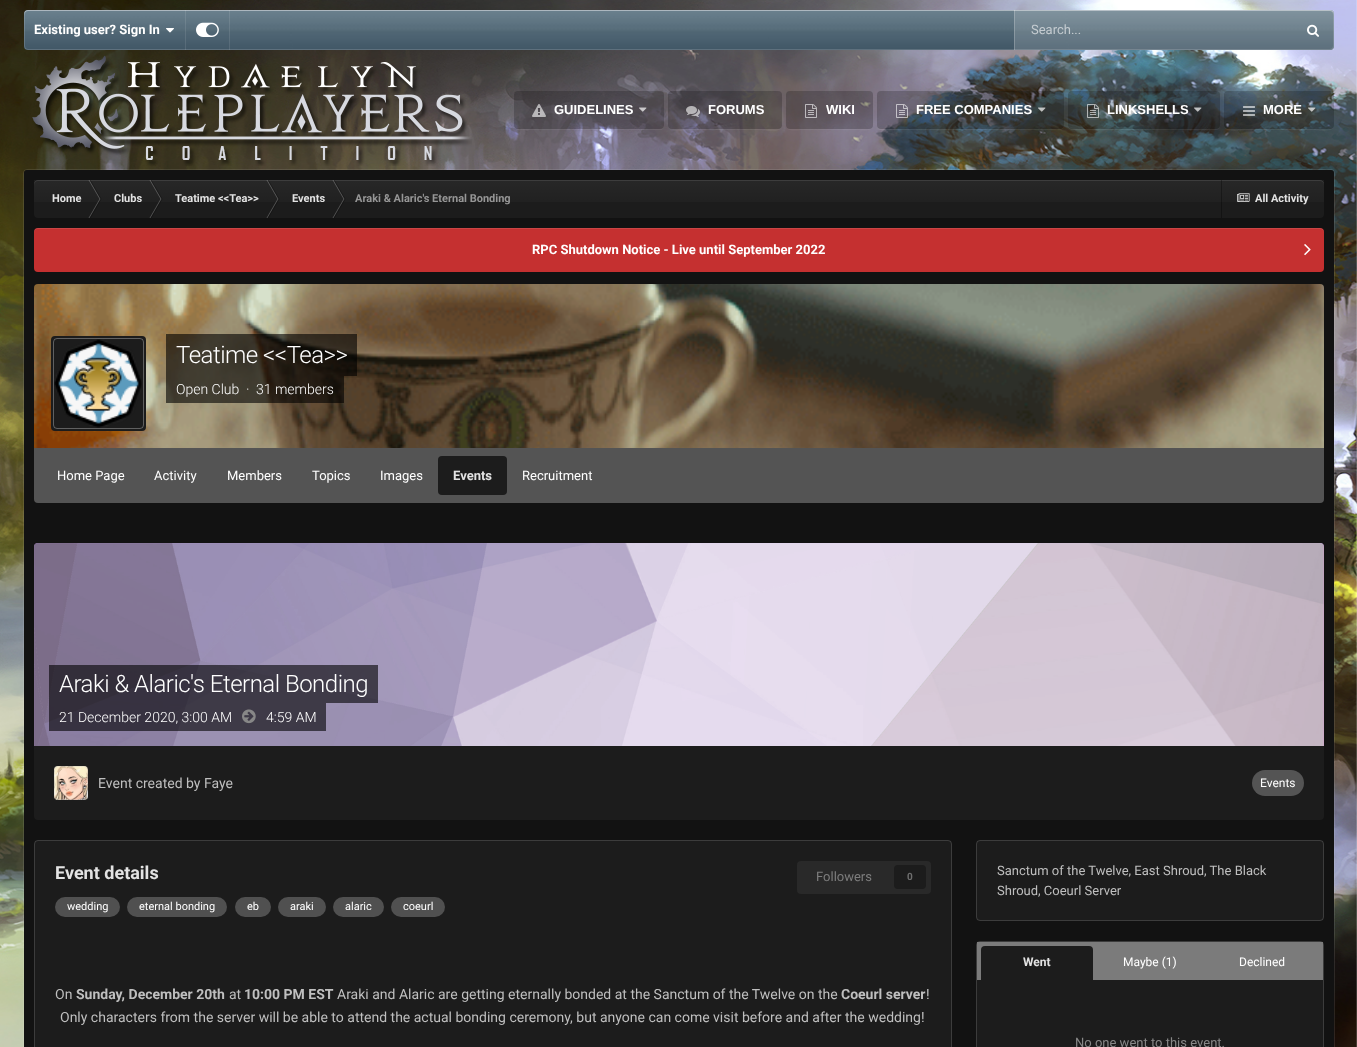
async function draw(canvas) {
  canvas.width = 1357;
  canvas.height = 1047;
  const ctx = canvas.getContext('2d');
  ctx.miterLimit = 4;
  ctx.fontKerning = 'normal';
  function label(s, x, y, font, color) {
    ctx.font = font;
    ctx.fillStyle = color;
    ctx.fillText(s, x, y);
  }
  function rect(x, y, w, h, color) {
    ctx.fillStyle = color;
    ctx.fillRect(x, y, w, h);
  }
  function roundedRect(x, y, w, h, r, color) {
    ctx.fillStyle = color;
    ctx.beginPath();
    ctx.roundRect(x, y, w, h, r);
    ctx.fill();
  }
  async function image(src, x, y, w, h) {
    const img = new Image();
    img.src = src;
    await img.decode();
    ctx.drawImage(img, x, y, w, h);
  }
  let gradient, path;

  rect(0, 0, 1357, 1047, '#fff');
  await image('assets/img1.png', 0, 0, 1357, 1047);
  roundedRect(24, 10, 1310, 40, 4, '#415f72');
  await image('assets/img2.png', 24, 10, 1310, 40);
  ctx.fillStyle = '#ffffff59';
  path = new Path2D('M28 11H1330C1332 11 1334 13 1334 15V14C1334 12 1332 10 1330 10H28C26 10 24 12 24 14V15C24 13 26 11 28 11Z');
  ctx.fill(path);
  ctx.beginPath();
  ctx.roundRect(24.5, 10.5, 1309, 39, 3.5);
  ctx.strokeStyle = '#ffffff26';
  ctx.stroke();
  rect(185, 10, 1, 40, '#ffffff1a');
  label('Existing user? Sign In', 34, 34, 'bold 13px Roboto', '#fff');
  await image('assets/img3.png', 166, 28, 8, 5);
  rect(229, 10, 1, 40, '#ffffff1a');
  await image('assets/img4.png', 196, 22, 23, 15);
  rect(1014, 10, 320, 40, '#ffffff26');
  rect(1014, 10, 1, 40, '#ffffff38');
  label('Search...', 1031, 34, '13px Roboto', '#c5ccd1');
  await image('assets/img5.png', 1307, 24, 12, 13);
  await image('assets/img6.png', 32, 55, 440, 111);
  ctx.fillStyle = '#ffffff0d';
  path = new Path2D('M514 125C514 127 515 129 517 130H660C663 130 664 128 664 125L663 128L660 129H518C516 129 514 127 514 125Z');
  ctx.fill(path);
  roundedRect(514, 91, 150, 38, 4, '#00000033');
  await image('assets/img7.png', 532, 104, 14, 13);
  label('GUIDELINES', 554, 114, 'bold 13px Liberation Sans', '#fff');
  await image('assets/img8.png', 639, 107, 8, 5);
  ctx.fillStyle = '#ffffff0d';
  path = new Path2D('M668 125C668 135 686 130 690 130H760C764 130 782 135 782 125C782 127 780 129 778 129H672C670 129 668 127 668 125Z');
  ctx.fill(path);
  roundedRect(668, 91, 114, 38, 4, '#00000033');
  await image('assets/img9.png', 686, 106, 14, 11);
  label('FORUMS', 708, 114, 'bold 13px Liberation Sans', '#fff');
  ctx.fillStyle = '#ffffff0d';
  path = new Path2D('M786 125C786 133 798 130 803 130H856C861 130 873 133 873 125C873 127 871 129 869 129H790C788 129 786 127 786 125Z');
  ctx.fill(path);
  roundedRect(786, 91, 87, 38, 4, '#00000033');
  await image('assets/img10.png', 805, 104, 12, 14);
  label('WIKI', 826, 114, 'bold 13px Liberation Sans', '#fff');
  ctx.fillStyle = '#ffffff0d';
  path = new Path2D('M877 125C877 128 878 130 881 130H1061C1063 129 1064 127 1064 125C1064 127 1062 129 1060 129H881C879 129 877 127 877 125Z');
  ctx.fill(path);
  roundedRect(877, 91, 187, 38, 4, '#00000033');
  await image('assets/img11.png', 896, 104, 12, 14);
  label('FREE COMPANIES', 916, 114, 'bold 13px Liberation Sans', '#fff');
  await image('assets/img12.png', 1038, 107, 8, 5);
  ctx.fillStyle = '#ffffff0d';
  path = new Path2D('M1068 125C1068 127 1069 129 1071 130H1216C1219 130 1220 128 1220 125L1219 128L1216 129H1072C1070 129 1068 127 1068 125Z');
  ctx.fill(path);
  roundedRect(1068, 91, 152, 38, 4, '#00000033');
  await image('assets/img13.png', 1087, 104, 12, 14);
  label('LINKSHELLS', 1107, 114, 'bold 13px Liberation Sans', '#fff');
  await image('assets/img14.png', 1194, 107, 8, 5);
  ctx.fillStyle = '#ffffff0d';
  path = new Path2D('M1224 125C1224 134 1241 130 1245 130H1313C1317 130 1334 134 1334 125C1334 127 1332 129 1330 129H1228C1226 129 1224 127 1224 125Z');
  ctx.fill(path);
  roundedRect(1224, 91, 110, 38, 4, '#00000033');
  await image('assets/img15.png', 1243, 106, 12, 10);
  label('MORE', 1263, 114, 'bold 13px Liberation Sans', '#fff');
  await image('assets/img16.png', 1308, 107, 8, 5);
  ctx.beginPath();
  ctx.roundRect(23.5, 169.5, 1311, 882, 3.5);
  ctx.strokeStyle = '#ffffff1a';
  ctx.stroke();
  roundedRect(24, 170, 1310, 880, 3, '#121212');
  roundedRect(34, 180, 1290, 38, 4, '#1c1c1c');
  gradient = ctx.createLinearGradient(679, 180, 679, 218);
  gradient.addColorStop(0, '#ffffff0d');
  gradient.addColorStop(1, '#ffffff00');
  ctx.fillStyle = gradient;
  ctx.fillRect(34, 180, 1290, 22);
  ctx.fillStyle = '#ffffff1a';
  path = new Path2D('M38 181H1320C1322 181 1324 183 1324 185V184C1324 182 1322 180 1320 180H38C36 180 34 182 34 184V185C34 183 36 181 38 181Z');
  ctx.fill(path);
  label('Home', 52, 202, 'bold 11px Roboto', '#e3e3e3');
  ctx.fillStyle = '#ffffff40';
  path = new Path2D('M88.5 180H89.5L100.5 199H99.5Z');
  ctx.fill(path);
  ctx.fillStyle = '#0000004d';
  path = new Path2D('M89.5 180H90.5L101.5 199H100.5Z');
  ctx.fill(path);
  ctx.fillStyle = '#ffffff40';
  path = new Path2D('M88.5 218H89.5L100.5 199H99.5Z');
  ctx.fill(path);
  ctx.fillStyle = '#0000004d';
  path = new Path2D('M89.5 218H90.5L101.5 199H100.5Z');
  ctx.fill(path);
  label('Clubs', 114, 202, 'bold 11px Roboto', '#e3e3e3');
  ctx.fillStyle = '#ffffff40';
  path = new Path2D('M149.5 180H150.5L161.5 199H160.5Z');
  ctx.fill(path);
  ctx.fillStyle = '#0000004d';
  path = new Path2D('M150.5 180H151.5L162.5 199H161.5Z');
  ctx.fill(path);
  ctx.fillStyle = '#ffffff40';
  path = new Path2D('M149.5 218H150.5L161.5 199H160.5Z');
  ctx.fill(path);
  ctx.fillStyle = '#0000004d';
  path = new Path2D('M150.5 218H151.5L162.5 199H161.5Z');
  ctx.fill(path);
  label('Teatime <<Tea>>', 175, 202, 'bold 11px Roboto', '#e3e3e3');
  ctx.fillStyle = '#ffffff40';
  path = new Path2D('M266.5 180H267.5L278.5 199H277.5Z');
  ctx.fill(path);
  ctx.fillStyle = '#0000004d';
  path = new Path2D('M267.5 180H268.5L279.5 199H278.5Z');
  ctx.fill(path);
  ctx.fillStyle = '#ffffff40';
  path = new Path2D('M266.5 218H267.5L278.5 199H277.5Z');
  ctx.fill(path);
  ctx.fillStyle = '#0000004d';
  path = new Path2D('M267.5 218H268.5L279.5 199H278.5Z');
  ctx.fill(path);
  label('Events', 292, 202, 'bold 11px Roboto', '#e3e3e3');
  ctx.fillStyle = '#ffffff40';
  path = new Path2D('M332.5 180H333.5L344.5 199H343.5Z');
  ctx.fill(path);
  ctx.fillStyle = '#0000004d';
  path = new Path2D('M333.5 180H334.5L345.5 199H344.5Z');
  ctx.fill(path);
  ctx.fillStyle = '#ffffff40';
  path = new Path2D('M332.5 218H333.5L344.5 199H343.5Z');
  ctx.fill(path);
  ctx.fillStyle = '#0000004d';
  path = new Path2D('M333.5 218H334.5L345.5 199H344.5Z');
  ctx.fill(path);
  label('Araki & Alaric\'s Eternal Bonding', 355, 202, 'bold 11px Roboto', '#969696');
  rect(1221, 180, 1, 38, '#0000004d');
  await image('assets/img17.png', 1237, 193, 13, 9);
  label('All Activity', 1255, 202, 'bold 11px Roboto', '#e3e3e3');
  roundedRect(34, 228, 1290, 44, 4, '#c53030');
  ctx.fillStyle = '#ffffff1a';
  path = new Path2D('M38 229H1320C1322 229 1324 231 1324 233V232C1324 230 1322 228 1320 228H38C36 228 34 230 34 232V233C34 231 36 229 38 229Z');
  ctx.fill(path);
  label('RPC Shutdown Notice - Live until September 2022', 532, 254, 'bold 13px Roboto', '#fff');
  await image('assets/img18.png', 1304, 244, 7, 12);
  await image('assets/img19.png', 34, 284, 1290, 164);
  ctx.fillStyle = '#1c1c1c';
  ctx.beginPath();
  ctx.roundRect(52, 337, 93, 93, 3);
  ctx.fill();
  ctx.strokeStyle = '#1c1c1c';
  ctx.lineWidth = 2;
  ctx.stroke();
  await image('assets/img20.png', 54, 338, 88, 90);
  ctx.beginPath();
  ctx.roundRect(53.5, 338.5, 90, 90, 3.5);
  ctx.strokeStyle = '#ffffff4d';
  ctx.lineWidth = 1;
  ctx.stroke();
  rect(166, 334, 191, 42, '#00000099');
  ctx.letterSpacing = '-0.5px';
  label('Teatime <<Tea>>', 176, 363, '300 24px Roboto', '#fff');
  rect(166, 376, 178, 27, '#00000099');
  ctx.letterSpacing = '0px';
  label('Open Club', 176, 394, '300 14px Roboto', '#fff');
  label('·', 246, 394, '300 14px Roboto', '#fff');
  label('31 members', 256, 394, '300 14px Roboto', '#fff');
  ctx.fillStyle = '#545454';
  ctx.beginPath();
  ctx.roundRect(34, 448, 1290, 55, [0, 0, 4, 4]);
  ctx.fill();
  label('Home Page', 57, 480, '13px Roboto', '#fff');
  label('Activity', 154, 480, '13px Roboto', '#fff');
  label('Members', 227, 480, '13px Roboto', '#fff');
  label('Topics', 312, 480, '13px Roboto', '#fff');
  label('Images', 380, 480, '13px Roboto', '#fff');
  roundedRect(438, 456, 69, 39, 4, '#1c1c1c');
  label('Events', 453, 480, 'bold 13px Roboto', '#e3e3e3');
  label('Recruitment', 522, 480, '13px Roboto', '#fff');
  ctx.fillStyle = '#d199ff';
  ctx.beginPath();
  ctx.roundRect(34, 543, 1290, 203, [4, 4, 0, 0]);
  ctx.fill();
  await image('assets/img21.png', 34, 543, 1290, 203);
  rect(49, 665, 329, 38, '#00000099');
  ctx.letterSpacing = '-0.5px';
  label('Araki & Alaric\'s Eternal Bonding', 59, 692, '300 24px Roboto', '#fff');
  rect(49, 703, 277, 28, '#00000099');
  ctx.letterSpacing = '0px';
  label('21 December 2020, 3:00 AM', 59, 722, '300 14px Roboto', '#fff');
  await image('assets/img22.png', 242, 709, 14, 15);
  label('4:59 AM', 266, 722, '300 14px Roboto', '#fff');
  ctx.fillStyle = '#1c1c1c';
  ctx.beginPath();
  ctx.roundRect(34, 746, 1290, 74, [0, 0, 4, 4]);
  ctx.fill();
  await image('assets/img23.png', 54, 766, 34, 34);
  ctx.beginPath();
  ctx.roundRect(54.5, 766.5, 33, 33, 3.5);
  ctx.strokeStyle = '#bfbfbf4d';
  ctx.stroke();
  label('Event created by Faye', 98, 788, '14px Roboto', '#bfbfbf');
  roundedRect(1252, 770, 52, 26, 13, '#545454');
  label('Events', 1260, 787, '12px Roboto', '#fff');
  roundedRect(34, 840, 918, 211, 4, '#1c1c1c');
  ctx.beginPath();
  ctx.roundRect(34.5, 840.5, 917, 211, 3.5);
  ctx.strokeStyle = '#bfbfbf33';
  ctx.stroke();
  label('Event details', 55, 879, 'bold 18px Roboto', '#e3e3e3');
  roundedRect(55, 897, 65, 20, 10, '#505050');
  label('wedding', 67, 910, '11px Roboto', '#fff');
  roundedRect(127, 897, 100, 20, 10, '#505050');
  label('eternal bonding', 139, 910, '11px Roboto', '#fff');
  roundedRect(235, 897, 36, 20, 10, '#505050');
  label('eb', 247, 910, '11px Roboto', '#fff');
  roundedRect(278, 897, 48, 20, 10, '#505050');
  label('araki', 290, 910, '11px Roboto', '#fff');
  roundedRect(333, 897, 51, 20, 10, '#505050');
  label('alaric', 345, 910, '11px Roboto', '#fff');
  roundedRect(391, 897, 54, 20, 10, '#505050');
  label('coeurl', 403, 910, '11px Roboto', '#fff');
  roundedRect(797, 861, 134, 33, 4, '#292929');
  label('Followers', 816, 881, '13px Roboto', '#7d7d7d');
  roundedRect(894, 865, 32, 24, 4, '#1c1c1c');
  label('0', 907, 880, 'bold 10px Roboto', '#6e6e6e');
  label('On', 55, 999, '14px Roboto', '#bfbfbf');
  label('Sunday, December 20th', 76, 999, 'bold 14px Roboto', '#bfbfbf');
  label('at', 229, 999, '14px Roboto', '#bfbfbf');
  label('10:00 PM EST', 244, 999, 'bold 14px Roboto', '#bfbfbf');
  label('Araki and Alaric are getting eternally bonded at the Sanctum of the Twelve on the', 337, 999, '14px Roboto', '#bfbfbf');
  label('Coeurl server', 841, 999, 'bold 14px Roboto', '#bfbfbf');
  label('!', 926, 999, '14px Roboto', '#bfbfbf');
  label('Only characters from the server will be able to attend the actual bonding ceremony, but anyone can come visit before and after the wedding!', 60, 1022, '14px Roboto', '#bfbfbf');
  roundedRect(976, 840, 348, 81, 4, '#1c1c1c');
  ctx.beginPath();
  ctx.roundRect(976.5, 840.5, 347, 80, 3.5);
  ctx.stroke();
  label('Sanctum of the Twelve, East Shroud, The Black', 997, 875, '13px Roboto', '#bfbfbf');
  label('Shroud, Coeurl Server', 997, 895, '13px Roboto', '#bfbfbf');
  roundedRect(976, 941, 348, 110, 4, '#1c1c1c');
  ctx.beginPath();
  ctx.roundRect(976.5, 941.5, 347, 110, 3.5);
  ctx.stroke();
  rect(977, 942, 346, 38, '#7b7b7b');
  ctx.fillStyle = '#1c1c1c';
  ctx.beginPath();
  ctx.roundRect(981, 946, 112, 34, [4, 4, 0, 0]);
  ctx.fill();
  label('Went', 1023, 966, 'bold 12px Roboto', '#e3e3e3');
  label('Maybe (1)', 1123, 966, '12px Roboto', '#fff');
  label('Declined', 1239, 966, '12px Roboto', '#fff');
  label('No one went to this event.', 1075, 1047, '13px Roboto', '#878787');
}

draw(document.querySelector('canvas'));
